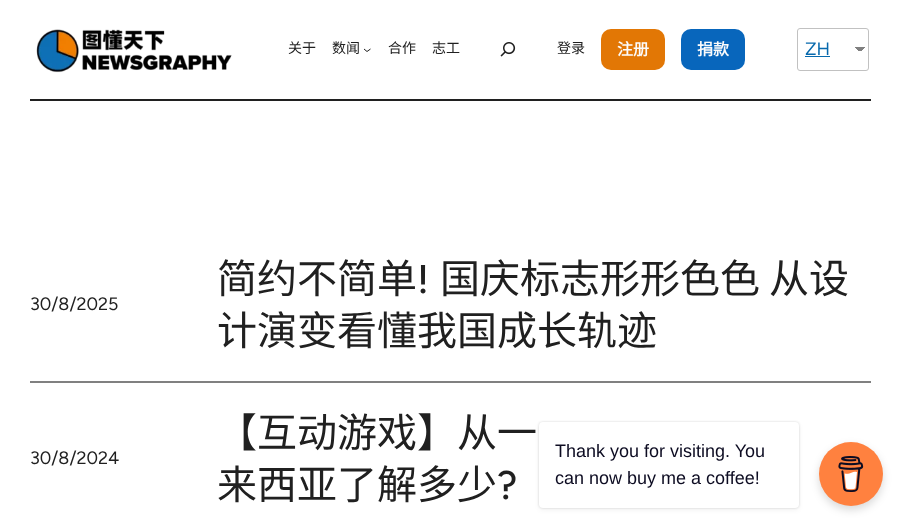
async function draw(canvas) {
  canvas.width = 901;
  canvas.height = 524;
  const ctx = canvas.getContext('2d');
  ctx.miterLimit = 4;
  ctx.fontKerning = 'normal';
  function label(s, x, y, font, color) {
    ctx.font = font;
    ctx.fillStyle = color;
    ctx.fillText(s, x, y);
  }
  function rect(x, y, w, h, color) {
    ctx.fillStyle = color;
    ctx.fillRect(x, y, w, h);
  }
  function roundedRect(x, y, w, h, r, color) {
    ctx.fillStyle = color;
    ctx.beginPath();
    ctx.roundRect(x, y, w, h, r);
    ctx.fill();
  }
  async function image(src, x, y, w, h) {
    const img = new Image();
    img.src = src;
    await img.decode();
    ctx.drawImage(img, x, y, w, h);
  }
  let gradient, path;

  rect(0, 0, 901, 524, '#fff');
  rect(30, 99, 841, 2, '#202020');
  await image('assets/img1.png', 36, 29, 196, 44);
  label('关于', 288, 53, '14px Noto Sans CJK SC', '#202020');
  label('数闻', 332, 53, '14px Noto Sans CJK SC', '#202020');
  path = new Path2D('M364 49L367 51.5L370.5 49');
  ctx.strokeStyle = '#202020';
  ctx.stroke(path);
  label('合作', 388, 53, '14px Noto Sans CJK SC', '#202020');
  label('志工', 432, 53, '14px Noto Sans CJK SC', '#202020');
  await image('assets/img2.png', 500, 42, 16, 15);
  label('登录', 557, 53, '14px Noto Sans CJK SC', '#202020');
  roundedRect(601, 29, 64, 41, 10, '#e27705');
  label('注册', 617, 55, 'bold 16px Noto Sans CJK SC', '#fbfbfb');
  roundedRect(681, 29, 64, 41, 10, '#0866bc');
  label('捐款', 697, 55, 'bold 16px Noto Sans CJK SC', '#fbfbfb');
  gradient = ctx.createLinearGradient(860, 47, 865, 52);
  gradient.addColorStop(0.5, '#808080');
  gradient.addColorStop(0.5, '#fff');
  ctx.fillStyle = gradient;
  ctx.fillRect(860, 47, 5, 4);
  gradient = ctx.createLinearGradient(855, 52, 860, 47);
  gradient.addColorStop(0.5, '#fff');
  gradient.addColorStop(0.5, '#808080');
  ctx.fillStyle = gradient;
  ctx.fillRect(855, 47, 5, 4);
  ctx.beginPath();
  ctx.roundRect(797.5, 28.5, 71, 42, 2.5);
  ctx.strokeStyle = '#c1c1c1';
  ctx.stroke();
  label('ZH', 805, 55, '18px Figtree', '#0769ad');
  rect(805, 56, 25, 1, '#0769ad');
  label('30/8/2025', 30, 310, '18px Figtree', '#202020');
  label('简约不简单', 217, 293, '40px Noto Sans CJK SC', '#202020');
  label('!', 417, 293, '500 40px Figtree', '#202020');
  label('国庆标志形形色色 从设', 440, 293, '40px Noto Sans CJK SC', '#202020');
  label('计演变看懂我国成长轨迹', 217, 345, '40px Noto Sans CJK SC', '#202020');
  rect(30, 381, 841, 2, '#808080');
  label('30/8/2024', 30, 464, '18px Figtree', '#202020');
  ctx.wordSpacing = '1px';
  label('【互动游戏】从一', 217, 447, '40px Noto Sans CJK SC', '#202020');
  ctx.wordSpacing = '0px';
  label('来西亚了解多少', 217, 499, '40px Noto Sans CJK SC', '#202020');
  label('?', 497, 499, '500 40px Figtree', '#202020');
  ctx.fillStyle = '#00000026';
  ctx.filter = 'blur(4px)';
  ctx.beginPath();
  ctx.roundRect(819, 446, 64, 64, 32);
  ctx.fill();
  ctx.filter = 'none';
  ctx.fillStyle = '#ff813f';
  ctx.beginPath();
  ctx.arc(851, 474, 32, 0, 2 * Math.PI);
  ctx.fill();
  await image('assets/img3.png', 838, 456, 26, 36);
  ctx.fillStyle = '#00000026';
  ctx.filter = 'blur(1px)';
  ctx.beginPath();
  ctx.roundRect(539, 422, 260, 86, 4);
  ctx.fill();
  ctx.filter = 'none';
  ctx.fillStyle = '#0000000d';
  ctx.filter = 'blur(2.5px)';
  ctx.beginPath();
  ctx.roundRect(539, 424, 260, 86, 4);
  ctx.fill();
  ctx.filter = 'none';
  roundedRect(539, 422, 260, 86, 4, '#fff');
  label('Thank you for visiting. You', 555, 457, '18px Liberation Sans', '#0d0c22');
  label('can now buy me a coffee!', 555, 484, '18px Liberation Sans', '#0d0c22');
}

draw(document.querySelector('canvas'));
